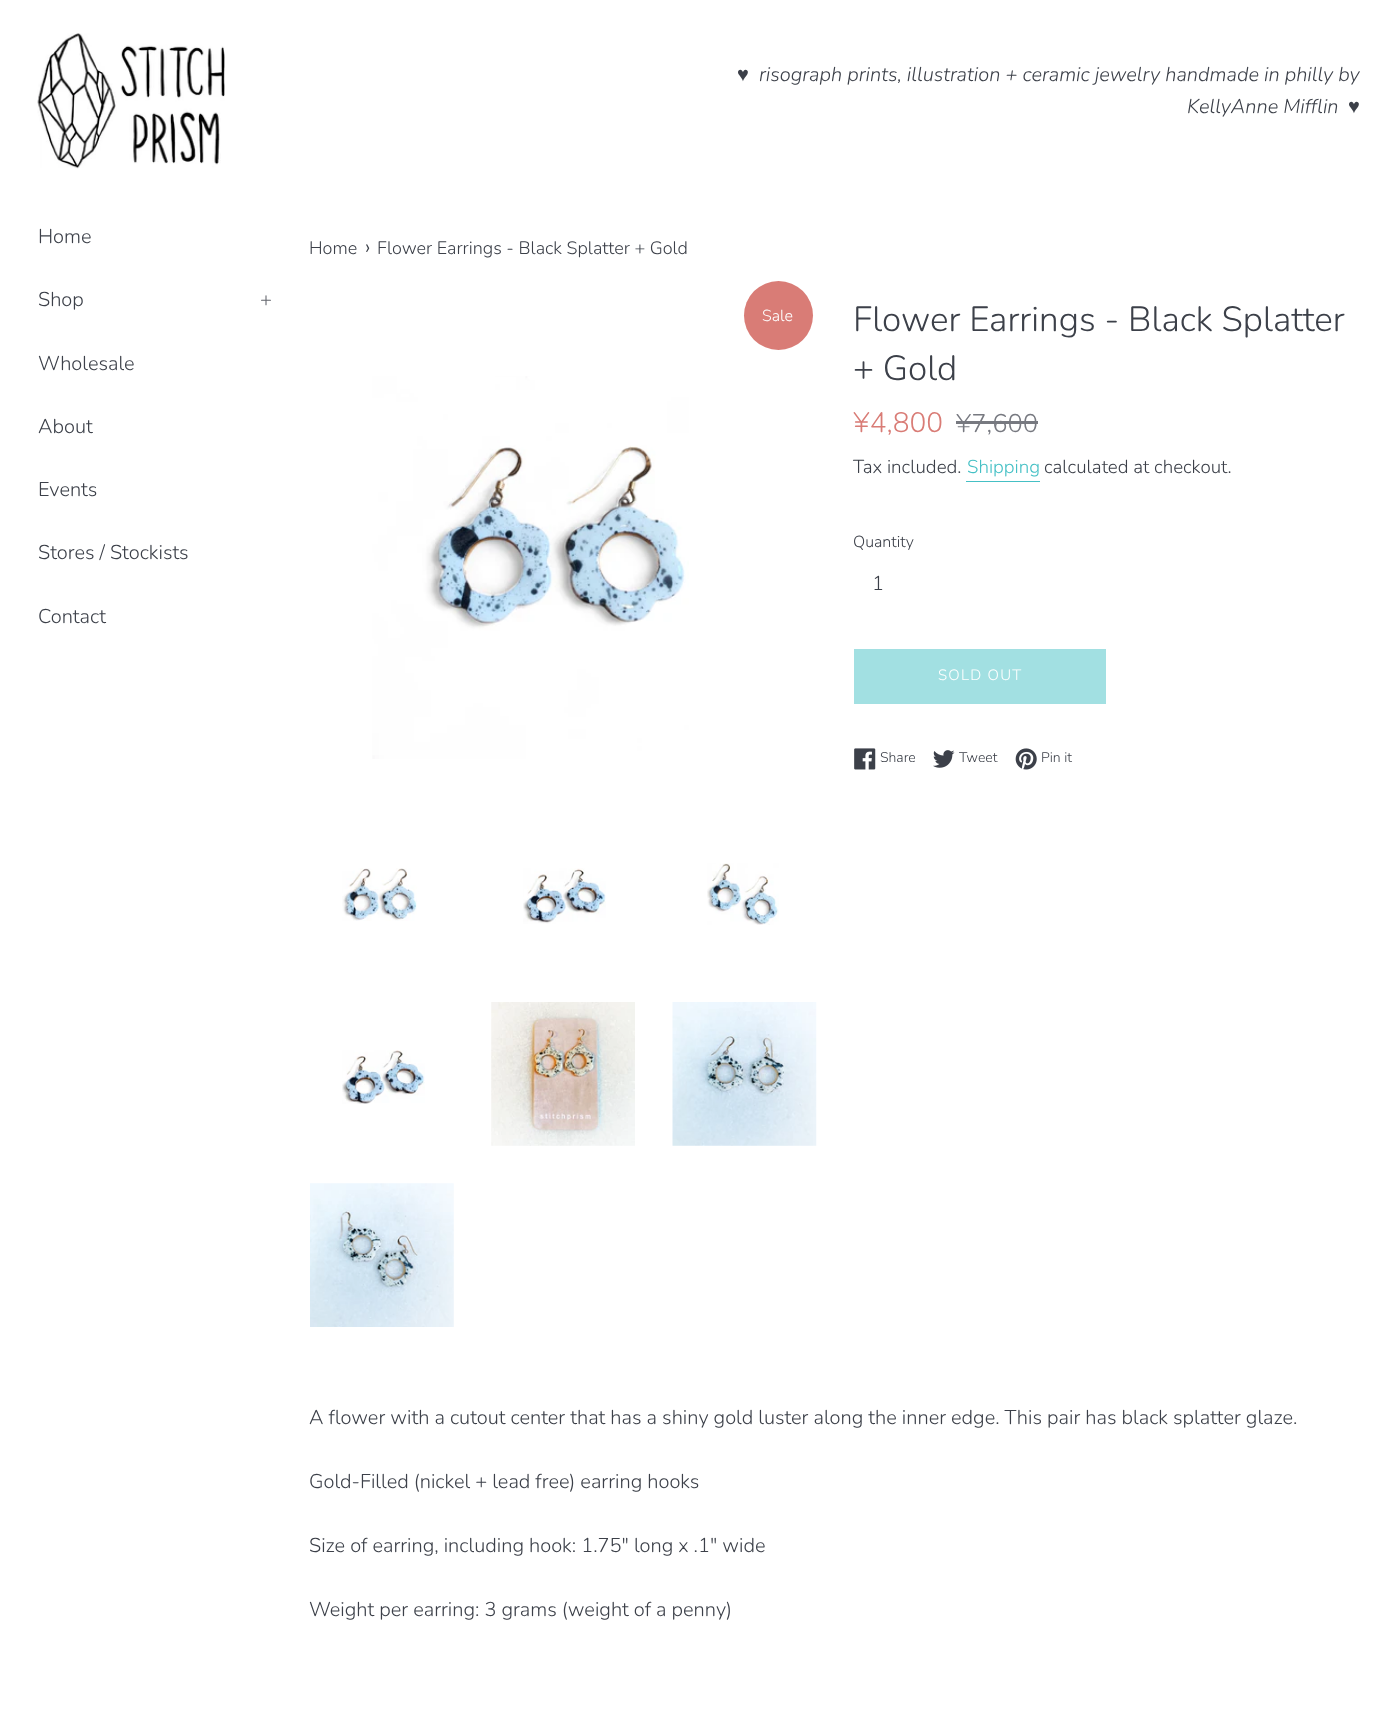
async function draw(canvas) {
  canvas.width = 1397;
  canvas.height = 1715;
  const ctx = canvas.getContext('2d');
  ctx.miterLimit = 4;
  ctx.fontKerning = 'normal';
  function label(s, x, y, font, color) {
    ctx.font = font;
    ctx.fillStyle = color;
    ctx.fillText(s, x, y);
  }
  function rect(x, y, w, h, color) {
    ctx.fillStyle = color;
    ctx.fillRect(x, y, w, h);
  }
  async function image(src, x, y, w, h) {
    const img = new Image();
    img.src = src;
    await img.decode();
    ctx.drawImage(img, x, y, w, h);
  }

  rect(0, 0, 1397, 1715, '#fff');
  await image('assets/img1.png', 37, 33, 188, 136);
  label('♥', 737, 81, 'italic 20px Liberation Sans', '#3c4049');
  label('risograph prints, illustration + ceramic jewelry handmade in philly by', 759, 81, 'italic 300 20px Nunito', '#3c4049');
  label('KellyAnne Mifflin', 1187, 113, 'italic 300 20px Nunito', '#3c4049');
  label('♥', 1348, 113, 'italic 20px Liberation Sans', '#3c4049');
  label('Home', 38, 243, '300 20px Nunito', '#3c4049');
  label('Shop', 38, 306, '300 20px Nunito', '#3c4049');
  label('+', 260, 306, '300 20px Nunito', '#63666d');
  label('Wholesale', 38, 370, '300 20px Nunito', '#3c4049');
  label('About', 38, 433, '300 20px Nunito', '#3c4049');
  label('Events', 38, 496, '300 20px Nunito', '#3c4049');
  label('Stores / Stockists', 38, 559, '300 20px Nunito', '#3c4049');
  label('Contact', 38, 623, '300 20px Nunito', '#3c4049');
  label('Home', 309, 254, '300 18px Nunito', '#3c4049');
  label('›', 365, 254, '300 22px Nunito', '#3c4049');
  label('Flower Earrings - Black Splatter + Gold', 377, 254, '300 18px Nunito', '#3c4049');
  ctx.fillStyle = '#d97c76';
  ctx.beginPath();
  ctx.arc(778.5, 315.5, 34.5, 0, 2 * Math.PI);
  ctx.fill();
  label('Sale', 762, 321, '300 16px Nunito', '#fff');
  await image('assets/img2.png', 372, 376, 317, 383);
  await image('assets/img3.png', 342, 868, 75, 53);
  await image('assets/img4.png', 523, 868, 83, 56);
  await image('assets/img5.png', 707, 863, 72, 62);
  await image('assets/img6.png', 342, 1050, 83, 54);
  await image('assets/img7.png', 491, 1002, 144, 144);
  await image('assets/img8.png', 672, 1002, 145, 144);
  await image('assets/img9.png', 310, 1183, 144, 144);
  label('Flower Earrings - Black Splatter', 853, 331, '300 35px Nunito', '#3c4049');
  label('+ Gold', 853, 380, '300 35px Nunito', '#3c4049');
  label('¥4,800', 853, 432, '300 28px Nunito', '#d97c76');
  label('¥7,600', 956, 432, '300 25.5px Nunito', '#777980');
  rect(956, 421, 82, 3, '#777980');
  label('Tax included.', 853, 473, '300 18.75px Nunito', '#3c4049');
  label('Shipping', 967, 473, '300 18.75px Nunito', '#45c0c5');
  rect(966, 481, 74, 1, '#45c0c5');
  label('calculated at checkout.', 1044, 473, '300 18.75px Nunito', '#3c4049');
  label('Quantity', 853, 547, '300 16px Nunito', '#3c4049');
  label('1', 872, 590, '300 20px Nunito', '#3c4049');
  rect(854, 649, 252, 55, '#a2e0e2');
  ctx.letterSpacing = '1.25px';
  label('SOLD OUT', 938, 680, '300 15px Nunito', '#fff');
  await image('assets/img10.png', 854, 748, 22, 22);
  ctx.letterSpacing = '0px';
  label('Share', 880, 762, '300 14px Nunito', '#3c4049');
  await image('assets/img11.png', 933, 750, 22, 18);
  label('Tweet', 959, 762, '300 14px Nunito', '#3c4049');
  await image('assets/img12.png', 1015, 748, 22, 22);
  label('Pin it', 1041, 762, '300 14px Nunito', '#3c4049');
  label('A flower with a cutout center that has a shiny gold luster along the inner edge. This pair has black splatter glaze.', 309, 1424, '300 20px Nunito', '#3c4049');
  label('Gold-Filled (nickel + lead free) earring hooks', 309, 1488, '300 20px Nunito', '#3c4049');
  label('Size of earring, including hook: 1.75" long x .1" wide', 309, 1552, '300 20px Nunito', '#3c4049');
  label('Weight per earring: 3 grams (weight of a penny)', 309, 1616, '300 20px Nunito', '#3c4049');
}

draw(document.querySelector('canvas'));
